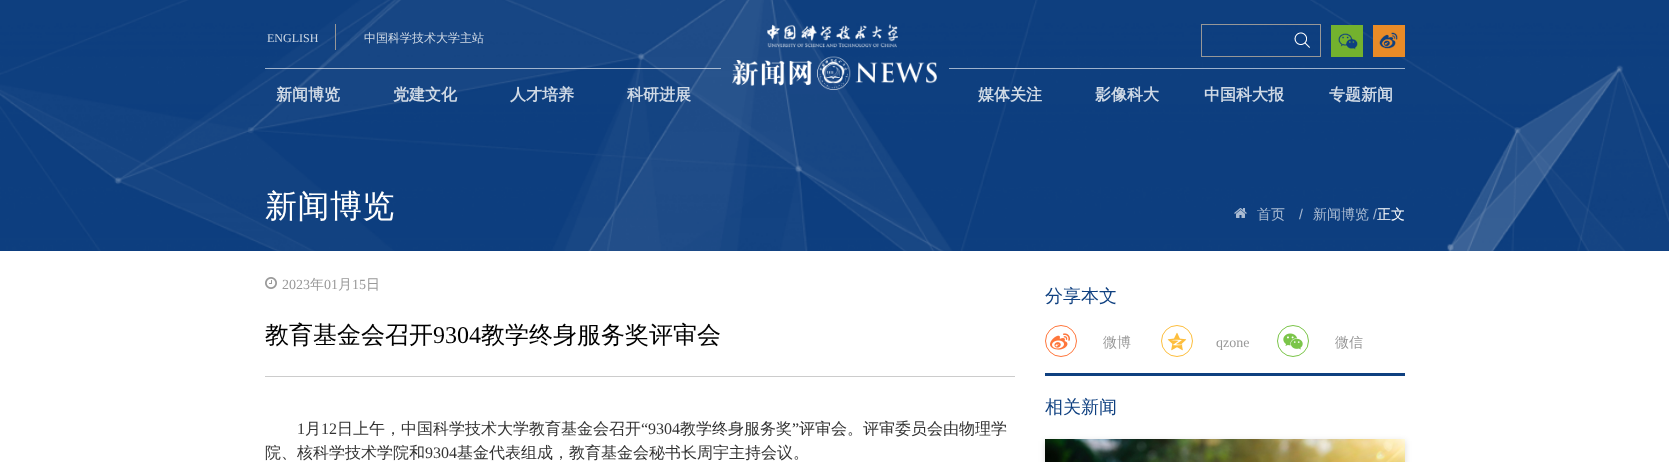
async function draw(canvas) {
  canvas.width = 1669;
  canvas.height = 462;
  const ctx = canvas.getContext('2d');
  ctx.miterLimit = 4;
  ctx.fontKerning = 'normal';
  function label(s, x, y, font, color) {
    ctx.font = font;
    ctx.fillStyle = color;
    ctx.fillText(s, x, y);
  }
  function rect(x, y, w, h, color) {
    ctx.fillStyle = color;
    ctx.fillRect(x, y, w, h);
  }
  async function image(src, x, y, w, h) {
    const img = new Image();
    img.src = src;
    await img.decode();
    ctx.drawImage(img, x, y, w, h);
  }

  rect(0, 0, 1669, 462, '#fff');
  await image('assets/img1.png', 0, 0, 1669, 251);
  rect(265, 68, 456, 1, '#ffffff99');
  rect(335, 24, 1, 26, '#979797');
  label('ENGLISH', 267, 42, '12px Liberation Serif', '#cfd9e5');
  label('中国科学技术大学主站', 364, 42, '500 12px WenQuanYi Zen Hei', '#cfd9e5');
  await image('assets/img2.png', 732, 24, 205, 66);
  rect(949, 68, 456, 1, '#ffffff99');
  ctx.strokeStyle = '#979797';
  ctx.strokeRect(1201.5, 24.5, 119, 32);
  await image('assets/img3.png', 1294, 32, 16, 16);
  await image('assets/img4.png', 1331, 25, 32, 32);
  await image('assets/img5.png', 1373, 25, 32, 32);
  label('新闻博览', 276, 100, 'bold 16px WenQuanYi Zen Hei', '#cfd9e5');
  label('党建文化', 393, 100, 'bold 16px WenQuanYi Zen Hei', '#cfd9e5');
  label('人才培养', 510, 100, 'bold 16px WenQuanYi Zen Hei', '#cfd9e5');
  label('科研进展', 627, 100, 'bold 16px WenQuanYi Zen Hei', '#cfd9e5');
  label('媒体关注', 978, 100, 'bold 16px WenQuanYi Zen Hei', '#cfd9e5');
  label('影像科大', 1095, 100, 'bold 16px WenQuanYi Zen Hei', '#cfd9e5');
  label('中国科大报', 1204, 100, 'bold 16px WenQuanYi Zen Hei', '#cfd9e5');
  label('专题新闻', 1329, 100, 'bold 16px WenQuanYi Zen Hei', '#cfd9e5');
  ctx.letterSpacing = '0.5px';
  label('新闻博览', 265, 217, '500 32px WenQuanYi Zen Hei', '#fff');
  await image('assets/img6.png', 1234, 208, 13, 10);
  ctx.letterSpacing = '0px';
  label('首页', 1257, 219, '500 14px WenQuanYi Zen Hei', '#aabbd2');
  label('/', 1299, 219, '14px Liberation Sans', '#aabbd2');
  label('新闻博览', 1313, 219, '500 14px WenQuanYi Zen Hei', '#aabbd2');
  label('/', 1373, 219, '14px Liberation Sans', '#aabbd2');
  label('正文', 1377, 219, '500 14px WenQuanYi Zen Hei', '#fff');
  await image('assets/img7.png', 265, 277, 12, 12);
  label('2023', 282, 289, '14px Liberation Serif', '#999');
  label('年', 310, 289, '500 14px WenQuanYi Zen Hei', '#999');
  label('01', 324, 289, '14px Liberation Serif', '#999');
  label('月', 338, 289, '500 14px WenQuanYi Zen Hei', '#999');
  label('15', 352, 289, '14px Liberation Serif', '#999');
  label('日', 366, 289, '500 14px WenQuanYi Zen Hei', '#999');
  rect(265, 376, 750, 1, '#ccc');
  label('教育基金会召开', 265, 343, '500 24px WenQuanYi Zen Hei', '#000');
  label('9304', 433, 343, '24px Liberation Serif', '#000');
  label('教学终身服务奖评审会', 481, 343, '500 24px WenQuanYi Zen Hei', '#000');
  label('1', 297, 434, '16px Liberation Serif', '#333');
  label('月', 305, 434, '500 16px WenQuanYi Zen Hei', '#333');
  label('12', 321, 434, '16px Liberation Serif', '#333');
  label('日上午，中国科学技术大学教育基金会召开', 337, 434, '500 16px WenQuanYi Zen Hei', '#333');
  label('“9304', 641, 434, '16px Liberation Serif', '#333');
  label('教学终身服务奖', 680, 434, '500 16px WenQuanYi Zen Hei', '#333');
  label('”', 792, 434, '16px Liberation Serif', '#333');
  label('评审会。评审委员会由物理学', 799, 434, '500 16px WenQuanYi Zen Hei', '#333');
  label('院、核科学技术学院和', 265, 458, '500 16px WenQuanYi Zen Hei', '#333');
  label('9304', 425, 458, '16px Liberation Serif', '#333');
  label('基金代表组成，教育基金会秘书长周宇主持会议。', 457, 458, '500 16px WenQuanYi Zen Hei', '#333');
  rect(1045, 373, 360, 3, '#0f4080');
  label('分享本文', 1045, 302, '500 18px WenQuanYi Zen Hei', '#0f4080');
  ctx.beginPath();
  ctx.arc(1061, 341, 15.5, 0, 2 * Math.PI);
  ctx.strokeStyle = '#ff763b';
  ctx.stroke();
  await image('assets/img8.png', 1050, 333, 20, 17);
  label('微博', 1103, 347, '500 14px WenQuanYi Zen Hei', '#999');
  ctx.beginPath();
  ctx.arc(1177, 341, 15.5, 0, 2 * Math.PI);
  ctx.strokeStyle = '#fdbe3d';
  ctx.stroke();
  await image('assets/img9.png', 1167, 332, 20, 19);
  label('qzone', 1216, 347, '14px Liberation Serif', '#999');
  ctx.beginPath();
  ctx.arc(1293, 341, 15.5, 0, 2 * Math.PI);
  ctx.strokeStyle = '#7bc549';
  ctx.stroke();
  await image('assets/img10.png', 1283, 333, 20, 17);
  label('微信', 1335, 347, '500 14px WenQuanYi Zen Hei', '#999');
  label('相关新闻', 1045, 413, '500 18px WenQuanYi Zen Hei', '#0f4080');
  ctx.fillStyle = '#00000024';
  ctx.filter = 'blur(3px)';
  ctx.beginPath();
  ctx.rect(1045, 441, 360, 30);
  ctx.fill();
  ctx.filter = 'none';
  await image('assets/img11.png', 1045, 439, 360, 23);
}

draw(document.querySelector('canvas'));
